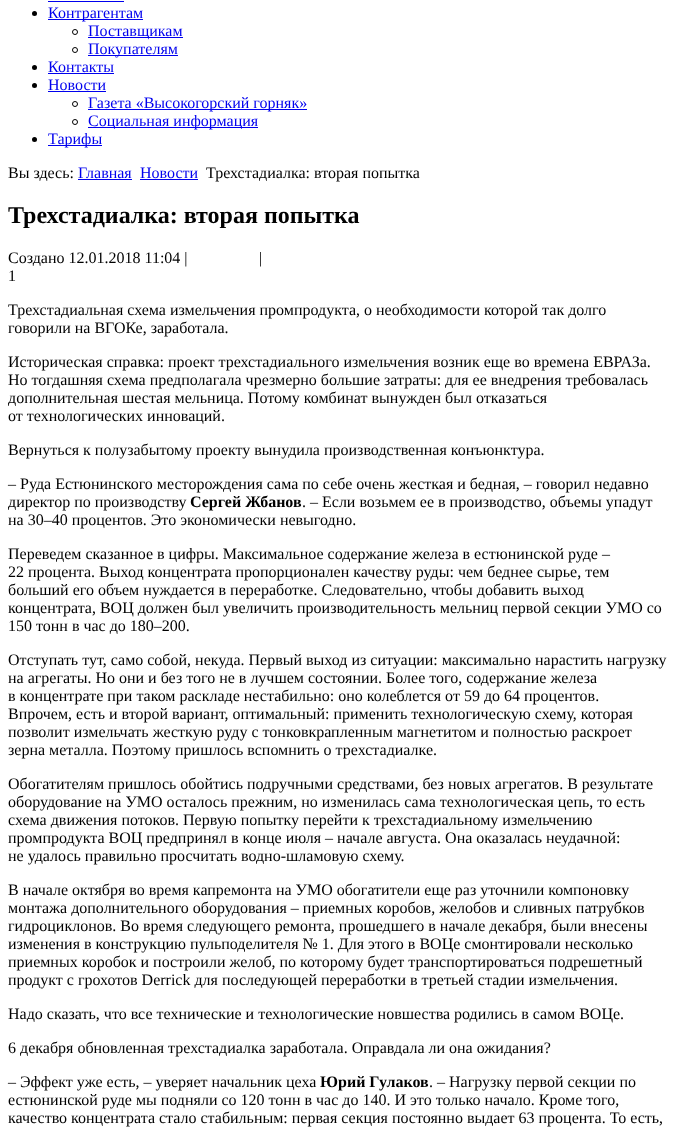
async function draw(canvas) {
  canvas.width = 675;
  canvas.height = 1138;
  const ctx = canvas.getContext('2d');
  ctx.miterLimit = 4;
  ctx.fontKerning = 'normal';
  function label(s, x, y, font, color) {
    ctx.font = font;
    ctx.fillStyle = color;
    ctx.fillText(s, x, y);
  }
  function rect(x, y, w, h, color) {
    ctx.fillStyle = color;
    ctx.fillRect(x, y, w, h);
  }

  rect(0, 0, 675, 1138, '#fff');
  rect(48, 1, 76, 1, '#00e');
  ctx.fillStyle = '#000';
  ctx.beginPath();
  ctx.arc(34.5, 13.5, 2.5, 0, 2 * Math.PI);
  ctx.fill();
  rect(48, 19, 95, 1, '#00e');
  label('Контрагентам', 48, 18, '16px Liberation Serif', '#00e');
  ctx.beginPath();
  ctx.arc(75, 32, 2.5, 0, 2 * Math.PI);
  ctx.strokeStyle = '#000';
  ctx.stroke();
  rect(88, 37, 95, 1, '#00e');
  label('Поставщикам', 88, 36, '16px Liberation Serif', '#00e');
  ctx.beginPath();
  ctx.arc(75, 50, 2.5, 0, 2 * Math.PI);
  ctx.stroke();
  rect(88, 55, 90, 1, '#00e');
  label('Покупателям', 88, 54, '16px Liberation Serif', '#00e');
  ctx.fillStyle = '#000';
  ctx.beginPath();
  ctx.arc(34.5, 67.5, 2.5, 0, 2 * Math.PI);
  ctx.fill();
  label('Контакты', 48, 72, '16px Liberation Serif', '#00e');
  rect(48, 73, 66, 1, '#00e');
  ctx.fillStyle = '#000';
  ctx.beginPath();
  ctx.arc(34.5, 85.5, 2.5, 0, 2 * Math.PI);
  ctx.fill();
  label('Новости', 48, 90, '16px Liberation Serif', '#00e');
  rect(48, 91, 58, 1, '#00e');
  ctx.beginPath();
  ctx.arc(75, 104, 2.5, 0, 2 * Math.PI);
  ctx.stroke();
  rect(88, 109, 219, 1, '#00e');
  label('Газета «Высокогорский горняк»', 88, 108, '16px Liberation Serif', '#00e');
  ctx.beginPath();
  ctx.arc(75, 122, 2.5, 0, 2 * Math.PI);
  ctx.stroke();
  rect(88, 127, 170, 1, '#00e');
  label('Социальная информация', 88, 126, '16px Liberation Serif', '#00e');
  ctx.fillStyle = '#000';
  ctx.beginPath();
  ctx.arc(34.5, 139.5, 2.5, 0, 2 * Math.PI);
  ctx.fill();
  rect(48, 145, 54, 1, '#00e');
  label('Тарифы', 48, 144, '16px Liberation Serif', '#00e');
  label('Вы здесь:', 8, 178, '16px Liberation Serif', '#000');
  label('Главная', 78, 178, '16px Liberation Serif', '#00e');
  rect(78, 179, 54, 1, '#00e');
  label('Новости', 140, 178, '16px Liberation Serif', '#00e');
  rect(140, 179, 58, 1, '#00e');
  label('Трехстадиалка: вторая попытка', 206, 178, '16px Liberation Serif', '#000');
  label('Трехстадиалка: вторая попытка', 8, 223, 'bold 24px Liberation Serif', '#000');
  label('Создано 12.01.2018 11:04 |', 8, 263, '16px Liberation Serif', '#000');
  label('|', 259, 263, '16px Liberation Serif', '#000');
  label('1', 8, 281, '16px Liberation Serif', '#000');
  label('Трехстадиальная схема измельчения промпродукта, о необходимости которой так долго', 8, 315, '16px Liberation Serif', '#000');
  label('говорили на ВГОКе, заработала.', 8, 333, '16px Liberation Serif', '#000');
  label('Историческая справка: проект трехстадиального измельчения возник еще во времена ЕВРАЗа.', 8, 367, '16px Liberation Serif', '#000');
  label('Но тогдашняя схема предполагала чрезмерно большие затраты: для ее внедрения требовалась', 8, 385, '16px Liberation Serif', '#000');
  label('дополнительная шестая мельница. Потому комбинат вынужден был отказаться', 8, 403, '16px Liberation Serif', '#000');
  label('от технологических инноваций.', 8, 421, '16px Liberation Serif', '#000');
  label('Вернуться к полузабытому проекту вынудила производственная конъюнктура.', 8, 455, '16px Liberation Serif', '#000');
  label('– Руда Естюнинского месторождения сама по себе очень жесткая и бедная, – говорил недавно', 8, 489, '16px Liberation Serif', '#000');
  label('директор по производству', 8, 507, '16px Liberation Serif', '#000');
  label('Сергей Жбанов', 190, 507, 'bold 16px Liberation Serif', '#000');
  label('. – Если возьмем ее в производство, объемы упадут', 302, 507, '16px Liberation Serif', '#000');
  label('на 30–40 процентов. Это экономически невыгодно.', 8, 525, '16px Liberation Serif', '#000');
  label('Переведем сказанное в цифры. Максимальное содержание железа в естюнинской руде –', 8, 559, '16px Liberation Serif', '#000');
  label('22 процента. Выход концентрата пропорционален качеству руды: чем беднее сырье, тем', 8, 577, '16px Liberation Serif', '#000');
  label('больший его объем нуждается в переработке. Следовательно, чтобы добавить выход', 8, 595, '16px Liberation Serif', '#000');
  label('концентрата, ВОЦ должен был увеличить производительность мельниц первой секции УМО со', 8, 613, '16px Liberation Serif', '#000');
  label('150 тонн в час до 180–200.', 8, 631, '16px Liberation Serif', '#000');
  label('Отступать тут, само собой, некуда. Первый выход из ситуации: максимально нарастить нагрузку', 8, 665, '16px Liberation Serif', '#000');
  label('на агрегаты. Но они и без того не в лучшем состоянии. Более того, содержание железа', 8, 683, '16px Liberation Serif', '#000');
  label('в концентрате при таком раскладе нестабильно: оно колеблется от 59 до 64 процентов.', 8, 701, '16px Liberation Serif', '#000');
  label('Впрочем, есть и второй вариант, оптимальный: применить технологическую схему, которая', 8, 719, '16px Liberation Serif', '#000');
  label('позволит измельчать жесткую руду с тонковкрапленным магнетитом и полностью раскроет', 8, 737, '16px Liberation Serif', '#000');
  label('зерна металла. Поэтому пришлось вспомнить о трехстадиалке.', 8, 755, '16px Liberation Serif', '#000');
  label('Обогатителям пришлось обойтись подручными средствами, без новых агрегатов. В результате', 8, 789, '16px Liberation Serif', '#000');
  label('оборудование на УМО осталось прежним, но изменилась сама технологическая цепь, то есть', 8, 807, '16px Liberation Serif', '#000');
  label('схема движения потоков. Первую попытку перейти к трехстадиальному измельчению', 8, 825, '16px Liberation Serif', '#000');
  label('промпродукта ВОЦ предпринял в конце июля – начале августа. Она оказалась неудачной:', 8, 843, '16px Liberation Serif', '#000');
  label('не удалось правильно просчитать водно-шламовую схему.', 8, 861, '16px Liberation Serif', '#000');
  label('В начале октября во время капремонта на УМО обогатители еще раз уточнили компоновку', 8, 895, '16px Liberation Serif', '#000');
  label('монтажа дополнительного оборудования – приемных коробов, желобов и сливных патрубков', 8, 913, '16px Liberation Serif', '#000');
  label('гидроциклонов. Во время следующего ремонта, прошедшего в начале декабря, были внесены', 8, 931, '16px Liberation Serif', '#000');
  label('изменения в конструкцию пульподелителя № 1. Для этого в ВОЦе смонтировали несколько', 8, 949, '16px Liberation Serif', '#000');
  label('приемных коробок и построили желоб, по которому будет транспортироваться подрешетный', 8, 967, '16px Liberation Serif', '#000');
  label('продукт с грохотов Derrick для последующей переработки в третьей стадии измельчения.', 8, 985, '16px Liberation Serif', '#000');
  label('Надо сказать, что все технические и технологические новшества родились в самом ВОЦе.', 8, 1019, '16px Liberation Serif', '#000');
  label('6 декабря обновленная трехстадиалка заработала. Оправдала ли она ожидания?', 8, 1053, '16px Liberation Serif', '#000');
  label('– Эффект уже есть, – уверяет начальник цеха', 8, 1087, '16px Liberation Serif', '#000');
  label('Юрий Гулаков', 320, 1087, 'bold 16px Liberation Serif', '#000');
  label('. – Нагрузку первой секции по', 429, 1087, '16px Liberation Serif', '#000');
  label('естюнинской руде мы подняли со 120 тонн в час до 140. И это только начало. Кроме того,', 8, 1105, '16px Liberation Serif', '#000');
  label('качество концентрата стало стабильным: первая секция постоянно выдает 63 процента. То есть,', 8, 1123, '16px Liberation Serif', '#000');
}

draw(document.querySelector('canvas'));
